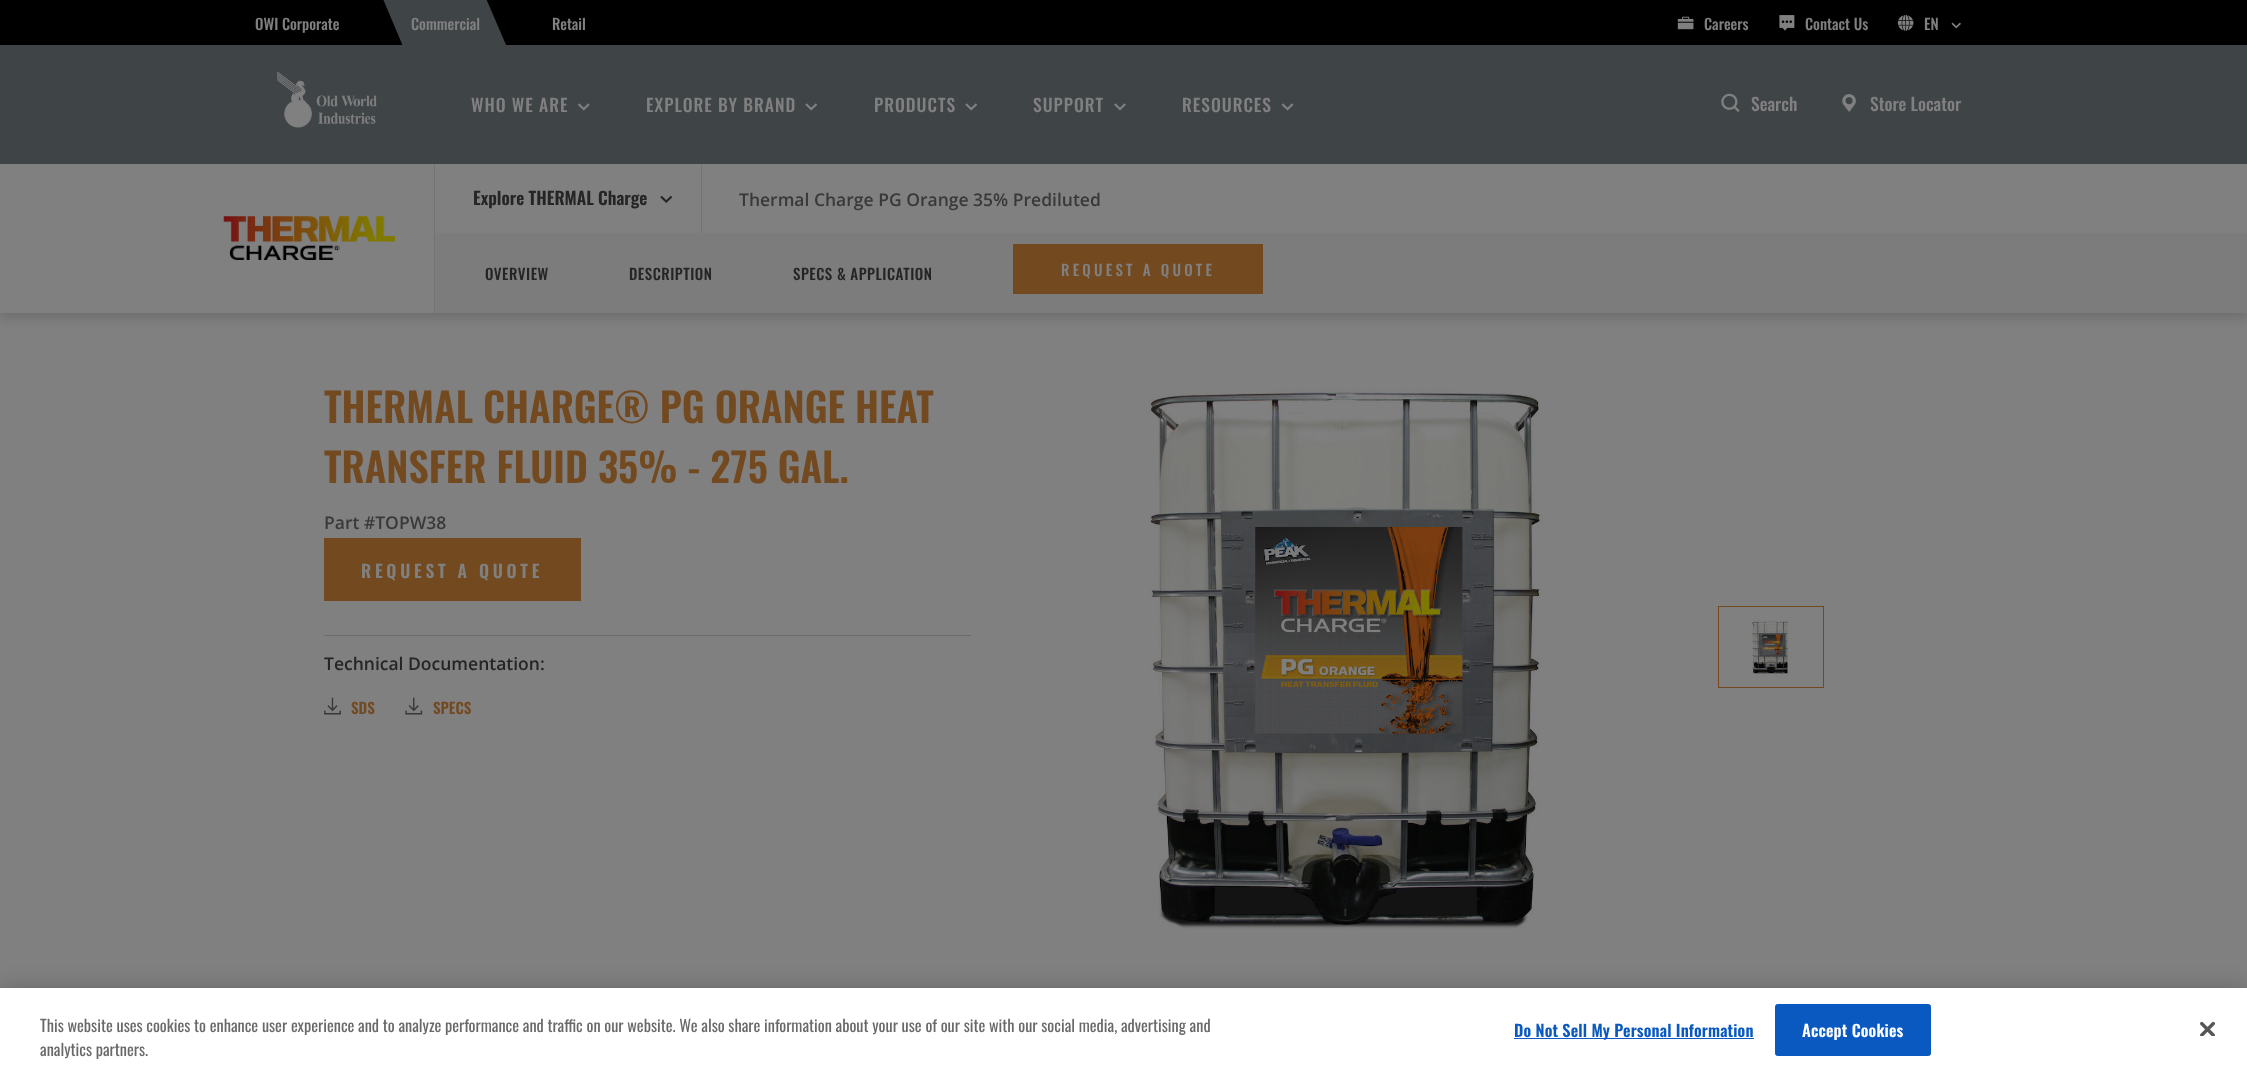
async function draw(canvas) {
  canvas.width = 2247;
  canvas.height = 1076;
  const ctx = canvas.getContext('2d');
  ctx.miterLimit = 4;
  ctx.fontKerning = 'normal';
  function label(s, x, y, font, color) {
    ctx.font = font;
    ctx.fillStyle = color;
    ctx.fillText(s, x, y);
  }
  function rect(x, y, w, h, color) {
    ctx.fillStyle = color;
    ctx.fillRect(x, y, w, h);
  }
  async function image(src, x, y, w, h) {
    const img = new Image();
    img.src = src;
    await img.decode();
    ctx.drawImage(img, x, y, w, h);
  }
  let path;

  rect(0, 0, 2247, 1076, '#808080');
  rect(0, 0, 2247, 45, '#000');
  ctx.save();
  ctx.beginPath();
  ctx.rect(255, 13, 84, 22);
  ctx.clip();
  label('OWI Corporate', 255, 30, '500 15px Oswald', '#808080');
  ctx.restore();
  ctx.fillStyle = '#3f4447';
  path = new Path2D('M367-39L454-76L528 96L440 134Z');
  ctx.fill(path);
  label('Commercial', 411, 30, '500 15px Oswald', '#808080');
  label('Retail', 552, 30, '500 15px Oswald', '#808080');
  await image('assets/img1.png', 1677, 16, 17, 14);
  label('Careers', 1704, 30, '500 15px Oswald', '#808080');
  await image('assets/img2.png', 1779, 15, 16, 16);
  label('Contact Us', 1805, 30, '500 15px Oswald', '#808080');
  await image('assets/img3.png', 1897, 15, 17, 16);
  label('EN', 1924, 30, '500 15px Oswald', '#808080');
  await image('assets/img4.png', 1951, 22, 10, 7);
  ctx.fillStyle = '#00000026';
  ctx.filter = 'blur(6px)';
  ctx.beginPath();
  ctx.rect(0, 169, 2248, 149);
  ctx.fill();
  ctx.filter = 'none';
  rect(0, 45, 2247, 119, '#3f4447');
  await image('assets/img5.png', 277, 71, 100, 57);
  ctx.letterSpacing = '1px';
  label('WHO WE ARE', 471, 112, '500 17.5px Oswald', '#808080');
  await image('assets/img6.png', 577, 103, 13, 8);
  label('EXPLORE BY BRAND', 646, 112, '500 17.5px Oswald', '#808080');
  await image('assets/img7.png', 805, 103, 13, 8);
  label('PRODUCTS', 874, 112, '500 17.5px Oswald', '#808080');
  await image('assets/img7.png', 965, 103, 13, 8);
  label('SUPPORT', 1033, 112, '500 17.5px Oswald', '#808080');
  await image('assets/img8.png', 1114, 103, 12, 8);
  label('RESOURCES', 1182, 112, '500 17.5px Oswald', '#808080');
  await image('assets/img9.png', 1281, 103, 13, 8);
  await image('assets/img10.png', 1721, 93, 19, 19);
  ctx.letterSpacing = '0px';
  label('Search', 1751, 111, '500 17.5px Oswald', '#808080');
  await image('assets/img11.png', 1842, 94, 14, 18);
  label('Store Locator', 1870, 111, '500 17.5px Oswald', '#808080');
  rect(0, 164, 2247, 149, '#808080');
  rect(434, 164, 1, 149, '#747373');
  await image('assets/img12.png', 223, 216, 172, 44);
  rect(701, 164, 1, 70, '#747373');
  label('Explore THERMAL Charge', 473, 205, '600 17.5px Oswald', '#252525');
  await image('assets/img13.png', 660, 195, 13, 8);
  label('Thermal Charge PG Orange 35% Prediluted', 739, 206, '600 17.5px Open Sans', '#393939');
  rect(435, 233, 1812, 80, '#7c7c7c');
  ctx.letterSpacing = '0.5px';
  label('OVERVIEW', 485, 280, '500 15px Oswald', '#252525');
  label('DESCRIPTION', 629, 280, '500 15px Oswald', '#252525');
  label('SPECS & APPLICATION', 793, 280, '500 15px Oswald', '#252525');
  rect(1013, 244, 250, 50, '#734920');
  ctx.letterSpacing = '3.25px';
  label('REQUEST A QUOTE', 1061, 276, '500 15px Oswald', '#808080');
  ctx.letterSpacing = '0px';
  label('THERMAL CHARGE® PG ORANGE HEAT', 324, 423, '600 40px Oswald', '#734920');
  label('TRANSFER FLUID 35% - 275 GAL.', 324, 483, '600 40px Oswald', '#734920');
  label('Part #TOPW38', 324, 529, '600 17.5px Open Sans', '#393939');
  rect(324, 538, 257, 63, '#734920');
  ctx.letterSpacing = '3.75px';
  label('REQUEST A QUOTE', 361, 578, '600 17.5px Oswald', '#808080');
  rect(324, 635, 647, 1, '#6a6a6a');
  ctx.letterSpacing = '0px';
  label('Technical Documentation:', 324, 670, '600 17.5px Open Sans', '#252525');
  await image('assets/img14.png', 324, 697, 17, 18);
  label('SDS', 351, 714, '600 15px Oswald', '#734920');
  await image('assets/img15.png', 405, 697, 18, 18);
  label('SPECS', 433, 714, '600 15px Oswald', '#734920');
  await image('assets/img16.png', 1149, 389, 394, 540);
  ctx.strokeStyle = '#734920';
  ctx.strokeRect(1718.5, 606.5, 105, 81);
  await image('assets/img17.png', 1752, 620, 36, 54);
  ctx.fillStyle = '#00000033';
  ctx.filter = 'blur(11px)';
  ctx.beginPath();
  ctx.rect(0, 988, 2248, 88);
  ctx.fill();
  ctx.filter = 'none';
  rect(0, 988, 2247, 88, '#fff');
  label('This website uses cookies to enhance user experience and to analyze performance and traffic on our website. We also share information about your use of our site with our social media, advertising and', 40, 1032, '16.25px Oswald', '#696969');
  label('analytics partners.', 40, 1056, '16.25px Oswald', '#696969');
  rect(1514, 1038, 240, 1, '#0a59c1');
  ctx.letterSpacing = '0.15px';
  label('Do Not Sell My Personal Information', 1514, 1037, '600 16.25px Oswald', '#0a59c1');
  ctx.beginPath();
  ctx.roundRect(1775.5, 1004.5, 155, 51, 2);
  ctx.fill();
  ctx.strokeStyle = '#0a59c1';
  ctx.stroke();
  label('Accept Cookies', 1802, 1037, '600 16.25px Oswald', '#fff');
  await image('assets/img18.png', 2200, 1021, 15, 15);
}

draw(document.querySelector('canvas'));
